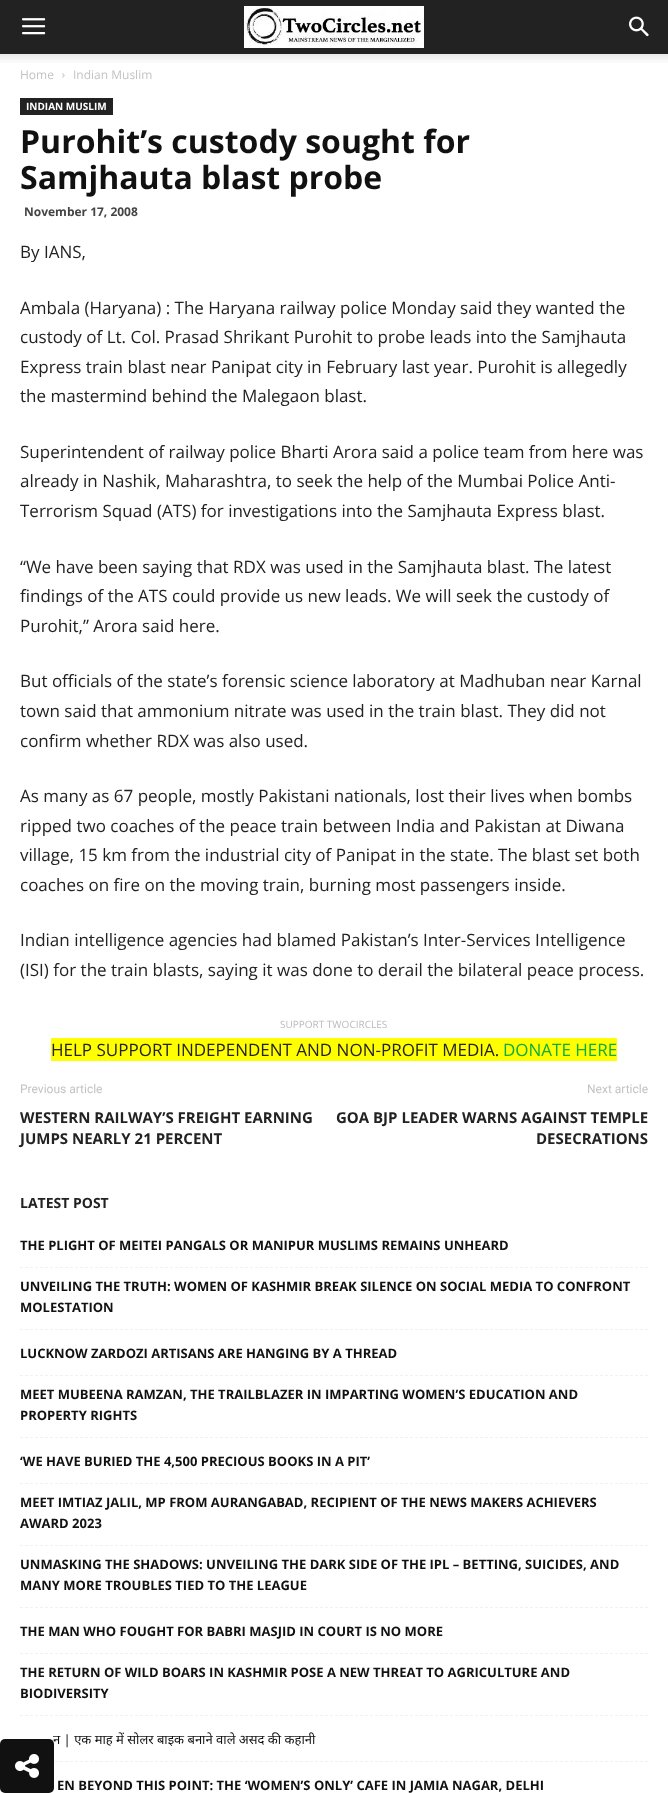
async function draw(canvas) {
  canvas.width = 668;
  canvas.height = 1793;
  const ctx = canvas.getContext('2d');
  ctx.miterLimit = 4;
  ctx.fontKerning = 'normal';
  function label(s, x, y, font, color) {
    ctx.font = font;
    ctx.fillStyle = color;
    ctx.fillText(s, x, y);
  }
  function rect(x, y, w, h, color) {
    ctx.fillStyle = color;
    ctx.fillRect(x, y, w, h);
  }
  function roundedRect(x, y, w, h, r, color) {
    ctx.fillStyle = color;
    ctx.beginPath();
    ctx.roundRect(x, y, w, h, r);
    ctx.fill();
  }
  async function image(src, x, y, w, h) {
    const img = new Image();
    img.src = src;
    await img.decode();
    ctx.drawImage(img, x, y, w, h);
  }
  let path;

  rect(0, 0, 668, 1793, '#fff');
  rect(0, 0, 668, 54, '#222');
  await image('assets/img1.png', 22, 18, 24, 17);
  await image('assets/img2.png', 244, 6, 180, 42);
  await image('assets/img3.png', 629, 16, 20, 21);
  await image('assets/img4.png', 0, 54, 668, 9);
  label('Home', 20, 79, '12px Open Sans', '#c3c3c3');
  await image('assets/img5.png', 62, 73, 3, 5);
  label('Indian Muslim', 73, 79, '12px Open Sans', '#c3c3c3');
  rect(20, 98, 93, 17, '#222');
  label('INDIAN MUSLIM', 26, 110, 'bold 10px Open Sans', '#fff');
  label('Purohit’s custody sought for', 20, 153, 'bold 32px Open Sans', '#111');
  label('Samjhauta blast probe', 20, 189, 'bold 32px Open Sans', '#111');
  label('November 17, 2008', 24, 216, 'bold 12px Open Sans', '#444');
  label('By IANS,', 20, 258, '17px Open Sans', '#222');
  label('Ambala (Haryana) : The Haryana railway police Monday said they wanted the', 20, 314, '17px Open Sans', '#222');
  label('custody of Lt. Col. Prasad Shrikant Purohit to probe leads into the Samjhauta', 20, 343, '17px Open Sans', '#222');
  label('Express train blast near Panipat city in February last year. Purohit is allegedly', 20, 373, '17px Open Sans', '#222');
  label('the mastermind behind the Malegaon blast.', 20, 402, '17px Open Sans', '#222');
  label('Superintendent of railway police Bharti Arora said a police team from here was', 20, 458, '17px Open Sans', '#222');
  label('already in Nashik, Maharashtra, to seek the help of the Mumbai Police Anti-', 20, 487, '17px Open Sans', '#222');
  label('Terrorism Squad (ATS) for investigations into the Samjhauta Express blast.', 20, 517, '17px Open Sans', '#222');
  label('“We have been saying that RDX was used in the Samjhauta blast. The latest', 20, 573, '17px Open Sans', '#222');
  label('findings of the ATS could provide us new leads. We will seek the custody of', 20, 602, '17px Open Sans', '#222');
  label('Purohit,” Arora said here.', 20, 632, '17px Open Sans', '#222');
  label('But officials of the state’s forensic science laboratory at Madhuban near Karnal', 20, 687, '17px Open Sans', '#222');
  label('town said that ammonium nitrate was used in the train blast. They did not', 20, 717, '17px Open Sans', '#222');
  label('confirm whether RDX was also used.', 20, 747, '17px Open Sans', '#222');
  label('As many as 67 people, mostly Pakistani nationals, lost their lives when bombs', 20, 802, '17px Open Sans', '#222');
  label('ripped two coaches of the peace train between India and Pakistan at Diwana', 20, 832, '17px Open Sans', '#222');
  label('village, 15 km from the industrial city of Panipat in the state. The blast set both', 20, 861, '17px Open Sans', '#222');
  label('coaches on fire on the moving train, burning most passengers inside.', 20, 891, '17px Open Sans', '#222');
  label('Indian intelligence agencies had blamed Pakistan’s Inter-Services Intelligence', 20, 946, '17px Open Sans', '#222');
  label('(ISI) for the train blasts, saying it was done to derail the bilateral peace process.', 20, 976, '17px Open Sans', '#222');
  label('SUPPORT TWOCIRCLES', 280, 1028, '10px Open Sans', '#bbb');
  rect(51, 1038, 566, 23, '#ff0');
  label('HELP SUPPORT INDEPENDENT AND NON-PROFIT MEDIA.', 51, 1056, '17px Open Sans', '#222');
  label('DONATE HERE', 503, 1056, '17px Open Sans', '#0dad3b');
  label('Previous article', 20, 1093, '12px Roboto', '#c3c3c3');
  label('WESTERN RAILWAY’S FREIGHT EARNING', 20, 1123, 'bold 15px Open Sans', '#222');
  label('JUMPS NEARLY 21 PERCENT', 20, 1144, 'bold 15px Open Sans', '#222');
  label('Next article', 587, 1093, '12px Roboto', '#c3c3c3');
  label('GOA BJP LEADER WARNS AGAINST TEMPLE', 336, 1123, 'bold 15px Open Sans', '#222');
  label('DESECRATIONS', 536, 1144, 'bold 15px Open Sans', '#222');
  label('LATEST POST', 20, 1208, 'bold 14px Open Sans', '#222');
  path = new Path2D('M20 1267.5H648');
  ctx.strokeStyle = '#f1f1f1';
  ctx.setLineDash([3, 2]);
  ctx.stroke(path);
  label('THE PLIGHT OF MEITEI PANGALS OR MANIPUR MUSLIMS REMAINS UNHEARD', 20, 1250, 'bold 13px Open Sans', '#111');
  path = new Path2D('M20 1329.5H648');
  ctx.stroke(path);
  label('UNVEILING THE TRUTH: WOMEN OF KASHMIR BREAK SILENCE ON SOCIAL MEDIA TO CONFRONT', 20, 1291, 'bold 13px Open Sans', '#111');
  label('MOLESTATION', 20, 1312, 'bold 13px Open Sans', '#111');
  path = new Path2D('M20 1375.5H648');
  ctx.stroke(path);
  label('LUCKNOW ZARDOZI ARTISANS ARE HANGING BY A THREAD', 20, 1358, 'bold 13px Open Sans', '#111');
  path = new Path2D('M20 1437.5H648');
  ctx.stroke(path);
  label('MEET MUBEENA RAMZAN, THE TRAILBLAZER IN IMPARTING WOMEN’S EDUCATION AND', 20, 1399, 'bold 13px Open Sans', '#111');
  label('PROPERTY RIGHTS', 20, 1420, 'bold 13px Open Sans', '#111');
  path = new Path2D('M20 1483.5H648');
  ctx.stroke(path);
  label('‘WE HAVE BURIED THE 4,500 PRECIOUS BOOKS IN A PIT’', 20, 1466, 'bold 13px Open Sans', '#111');
  path = new Path2D('M20 1545.5H648');
  ctx.stroke(path);
  label('MEET IMTIAZ JALIL, MP FROM AURANGABAD, RECIPIENT OF THE NEWS MAKERS ACHIEVERS', 20, 1507, 'bold 13px Open Sans', '#111');
  label('AWARD 2023', 20, 1528, 'bold 13px Open Sans', '#111');
  path = new Path2D('M20 1607.5H648');
  ctx.stroke(path);
  label('UNMASKING THE SHADOWS: UNVEILING THE DARK SIDE OF THE IPL – BETTING, SUICIDES, AND', 20, 1569, 'bold 13px Open Sans', '#111');
  label('MANY MORE TROUBLES TIED TO THE LEAGUE', 20, 1590, 'bold 13px Open Sans', '#111');
  path = new Path2D('M20 1653.5H648');
  ctx.stroke(path);
  label('THE MAN WHO FOUGHT FOR BABRI MASJID IN COURT IS NO MORE', 20, 1636, 'bold 13px Open Sans', '#111');
  path = new Path2D('M20 1715.5H648');
  ctx.stroke(path);
  label('THE RETURN OF WILD BOARS IN KASHMIR POSE A NEW THREAT TO AGRICULTURE AND', 20, 1677, 'bold 13px Open Sans', '#111');
  label('BIODIVERSITY', 20, 1698, 'bold 13px Open Sans', '#111');
  path = new Path2D('M20 1761.5H648');
  ctx.stroke(path);
  label('न | एक माह में सोलर बाइक बनाने वाले असद की कहानी', 53, 1744, '13px Noto Sans', '#111');
  label('EN BEYOND THIS POINT: THE ‘WOMEN’S ONLY’ CAFE IN JAMIA NAGAR, DELHI', 57, 1790, 'bold 13px Open Sans', '#111');
  roundedRect(0, 1739, 54, 54, 5, '#111');
  await image('assets/img6.png', 15, 1754, 24, 24);
}

draw(document.querySelector('canvas'));
